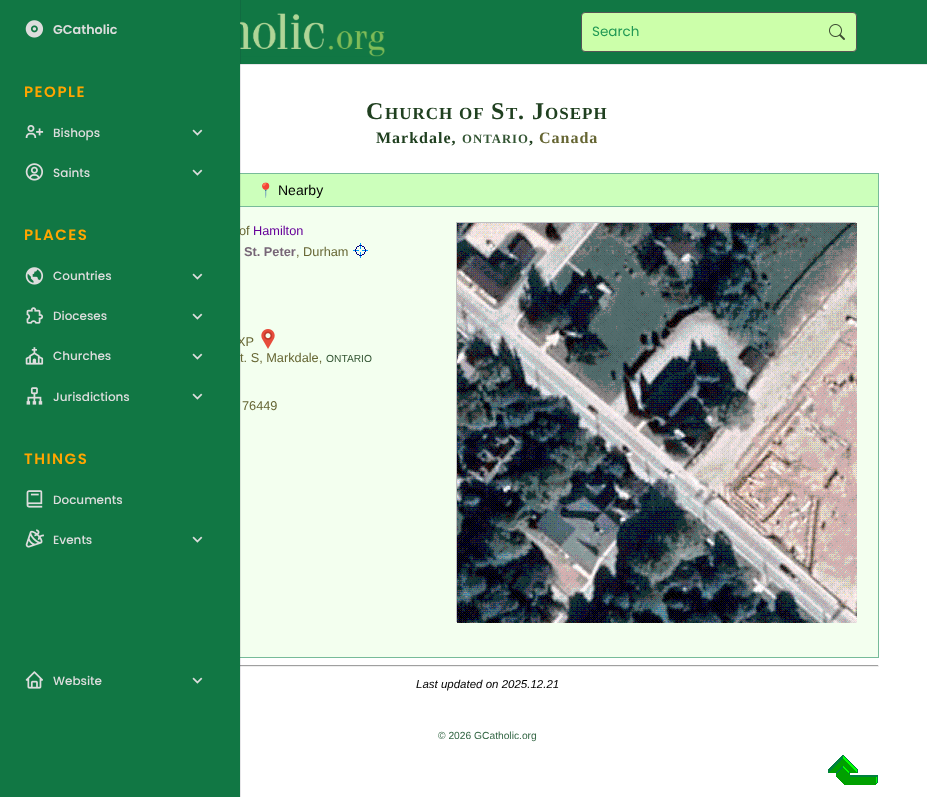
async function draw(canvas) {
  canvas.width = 927;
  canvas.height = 797;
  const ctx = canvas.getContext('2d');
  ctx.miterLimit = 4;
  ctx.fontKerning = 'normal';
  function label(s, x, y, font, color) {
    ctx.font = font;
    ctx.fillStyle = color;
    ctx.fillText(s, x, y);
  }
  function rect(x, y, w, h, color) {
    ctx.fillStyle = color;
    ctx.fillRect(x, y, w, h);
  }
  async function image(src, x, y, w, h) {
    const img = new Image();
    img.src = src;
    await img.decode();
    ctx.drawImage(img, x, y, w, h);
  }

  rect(0, 0, 927, 797, '#fff');
  rect(240, 64, 687, 1, '#e8e6ea');
  rect(240, 0, 687, 64, '#174');
  await image('assets/img12.png', 240, 13, 145, 44);
  rect(240, 174, 638, 32, '#cfb');
  ctx.strokeStyle = '#7b9';
  ctx.strokeRect(96.5, 173.5, 782, 33);
  rect(240, 207, 638, 450, '#f3ffef');
  rect(878, 207, 1, 451, '#7b9');
  rect(240, 657, 639, 1, '#7b9');
  rect(240, 665, 639, 1, '#9f9f9f');
  rect(878, 665, 1, 2, '#eee');
  rect(240, 666, 639, 1, '#eee');
  rect(240, 0, 1, 797, '#16082b1a');
  label('of', 239, 235, '12.75px Liberation Sans', '#663');
  label('XP', 237, 346, '12.75px Liberation Sans', '#663');
  rect(0, 0, 240, 797, '#174');
  await image('assets/img1.png', 25, 20, 19, 18);
  label('GCatholic', 53, 34, '600 12.75px Poppins', '#ddd');
  ctx.letterSpacing = '1.5px';
  label('PEOPLE', 24, 97, '600 15px Poppins', '#ffa500');
  await image('assets/img2.png', 25, 125, 19, 13);
  ctx.letterSpacing = '0px';
  label('Bishops', 53, 137, '500 12px Poppins', '#ddd');
  await image('assets/img3.png', 192, 129, 11, 7);
  await image('assets/img4.png', 25, 163, 19, 18);
  label('Saints', 53, 177, '500 12px Poppins', '#ddd');
  await image('assets/img3.png', 192, 169, 11, 7);
  ctx.letterSpacing = '1.5px';
  label('PLACES', 24, 240, '600 15px Poppins', '#ffa500');
  await image('assets/img5.png', 25, 267, 19, 18);
  ctx.letterSpacing = '0px';
  label('Countries', 53, 280, '500 12px Poppins', '#ddd');
  await image('assets/img3.png', 192, 273, 11, 7);
  await image('assets/img6.png', 26, 307, 18, 17);
  label('Dioceses', 53, 320, '500 12px Poppins', '#ddd');
  await image('assets/img3.png', 192, 313, 11, 7);
  await image('assets/img7.png', 25, 347, 19, 18);
  label('Churches', 53, 360, '500 12px Poppins', '#ddd');
  await image('assets/img3.png', 192, 353, 11, 7);
  await image('assets/img8.png', 26, 387, 17, 18);
  label('Jurisdictions', 53, 401, '500 12px Poppins', '#ddd');
  await image('assets/img3.png', 192, 393, 11, 7);
  ctx.letterSpacing = '1.5px';
  label('THINGS', 24, 464, '600 15px Poppins', '#ffa500');
  await image('assets/img9.png', 26, 490, 17, 18);
  ctx.letterSpacing = '0px';
  label('Documents', 53, 504, '500 12px Poppins', '#ddd');
  await image('assets/img10.png', 25, 529, 19, 19);
  label('Events', 53, 544, '500 12px Poppins', '#ddd');
  await image('assets/img3.png', 192, 536, 11, 7);
  await image('assets/img11.png', 25, 671, 18, 18);
  label('Website', 53, 685, '500 12px Poppins', '#ddd');
  await image('assets/img3.png', 192, 677, 11, 7);
  ctx.fillStyle = '#cfa';
  ctx.beginPath();
  ctx.roundRect(581.5, 12.5, 275, 39, 3.5);
  ctx.fill();
  ctx.strokeStyle = '#555';
  ctx.stroke();
  label('Search', 592, 36, '13.5px Poppins', '#295');
  await image('assets/img13.png', 829, 24, 16, 16);
  ctx.letterSpacing = '1px';
  label('C', 366, 119, 'bold 24px Liberation Serif', '#204020');
  label('HURCH', 385, 119, 'bold 17px Liberation Serif', '#204020');
  label('OF', 459, 119, 'bold 17px Liberation Serif', '#204020');
  label('S', 491, 119, 'bold 24px Liberation Serif', '#204020');
  label('T', 506, 119, 'bold 17px Liberation Serif', '#204020');
  label('. J', 518, 119, 'bold 24px Liberation Serif', '#204020');
  label('OSEPH', 545, 119, 'bold 17px Liberation Serif', '#204020');
  label('Markdale,', 376, 143, 'bold 16px Liberation Serif', '#204020');
  label('ONTARIO', 462, 143, 'bold 12.75px Liberation Serif', '#353');
  label(',', 529, 143, 'bold 16px Liberation Serif', '#204020');
  label('Canada', 539, 143, 'bold 16px Liberation Serif', '#663');
  ctx.letterSpacing = '0px';
  label('📍', 257, 195, '14px Noto Color Emoji', '#000');
  label('Nearby', 278, 195, '14px Liberation Sans', '#000');
  label('Hamilton', 253, 235, '12.75px Liberation Sans', '#609');
  label('St. Peter', 244, 256, 'bold 12.75px Liberation Sans', '#767');
  label(', Durham', 296, 256, '12.75px Liberation Sans', '#663');
  await image('assets/img14.png', 353, 243, 15, 15);
  await image('assets/img15.png', 261, 329, 14, 20);
  label('t. S, Markdale,', 240, 362, '12.75px Liberation Sans', '#663');
  label('ONTARIO', 326, 362, '10.25px Liberation Sans', '#353');
  label('76449', 242, 410, '12.75px Liberation Sans', '#663');
  ctx.strokeStyle = '#c0c0c0';
  ctx.strokeRect(456.5, 222.5, 399, 399);
  await image('assets/img16.png', 457, 223, 400, 400);
  label('Last updated on 2025.12.21', 416, 688, 'italic 11.5px Liberation Sans', '#000');
  label('© 2026 GCatholic.org', 438, 739, '10.25px Liberation Sans', '#364');
  await image('assets/img17.png', 828, 755, 50, 30);
}

draw(document.querySelector('canvas'));
